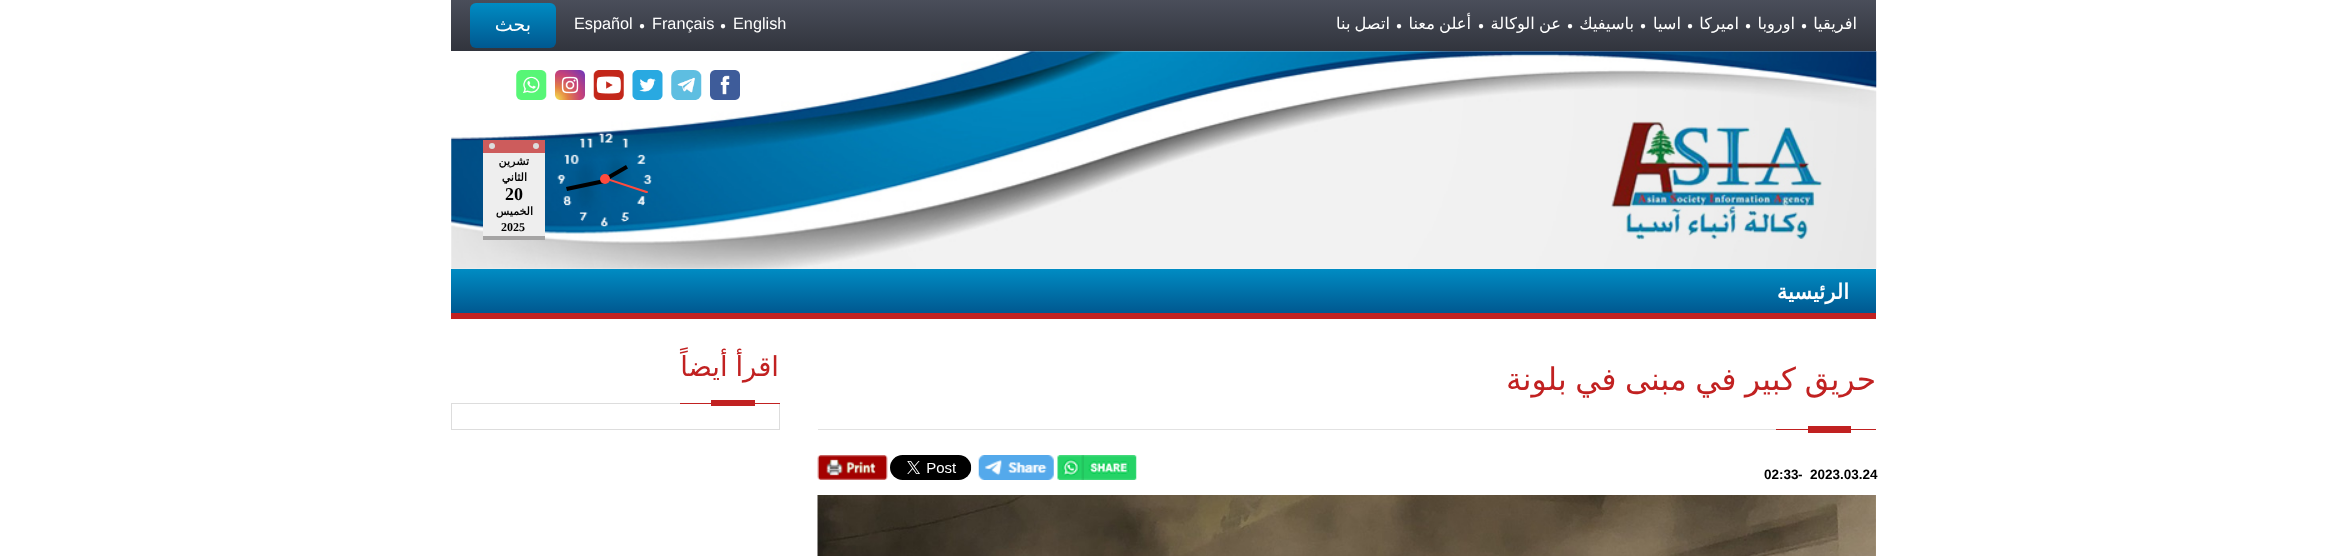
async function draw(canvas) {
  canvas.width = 2327;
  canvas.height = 556;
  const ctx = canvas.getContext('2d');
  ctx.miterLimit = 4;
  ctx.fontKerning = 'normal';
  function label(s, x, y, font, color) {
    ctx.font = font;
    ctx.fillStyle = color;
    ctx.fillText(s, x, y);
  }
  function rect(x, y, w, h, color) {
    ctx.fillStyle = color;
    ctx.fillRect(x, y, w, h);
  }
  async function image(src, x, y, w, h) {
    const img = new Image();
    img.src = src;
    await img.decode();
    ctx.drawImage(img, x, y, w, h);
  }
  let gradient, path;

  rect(0, 0, 2327, 556, '#fff');
  gradient = ctx.createLinearGradient(1164, 51, 1164, 0);
  gradient.addColorStop(0, '#31343d');
  gradient.addColorStop(1, '#4a4e5a');
  ctx.fillStyle = gradient;
  ctx.fillRect(451, 0, 1425, 51);
  ctx.direction = 'rtl';
  label('افريقيا', 1857, 29, '16.25px DejaVu Sans', '#fff');
  ctx.direction = 'ltr';
  label('●', 1801, 29, '10px Liberation Sans', '#fff');
  ctx.direction = 'rtl';
  label('اوروبا', 1795, 29, '16.25px DejaVu Sans', '#fff');
  ctx.direction = 'ltr';
  label('●', 1745, 29, '10px Liberation Sans', '#fff');
  ctx.direction = 'rtl';
  label('اميركا', 1739, 29, '16.25px DejaVu Sans', '#fff');
  ctx.direction = 'ltr';
  label('●', 1687, 29, '10px Liberation Sans', '#fff');
  ctx.direction = 'rtl';
  label('اسيا', 1681, 29, '16.25px DejaVu Sans', '#fff');
  ctx.direction = 'ltr';
  label('●', 1640, 29, '10px Liberation Sans', '#fff');
  ctx.direction = 'rtl';
  label('باسيفيك', 1634, 29, '16.25px DejaVu Sans', '#fff');
  ctx.direction = 'ltr';
  label('●', 1567, 29, '10px Liberation Sans', '#fff');
  ctx.wordSpacing = '-1px';
  ctx.direction = 'rtl';
  label('عن الوكالة', 1561, 29, '16.25px DejaVu Sans', '#fff');
  ctx.wordSpacing = '0px';
  ctx.direction = 'ltr';
  label('●', 1478, 29, '10px Liberation Sans', '#fff');
  ctx.wordSpacing = '-1px';
  ctx.direction = 'rtl';
  label('أعلن معنا', 1471, 29, '16.25px DejaVu Sans', '#fff');
  ctx.wordSpacing = '0px';
  ctx.direction = 'ltr';
  label('●', 1396, 29, '10px Liberation Sans', '#fff');
  ctx.wordSpacing = '-1px';
  ctx.direction = 'rtl';
  label('اتصل بنا', 1390, 29, '16.25px DejaVu Sans', '#fff');
  ctx.wordSpacing = '0px';
  ctx.direction = 'ltr';
  label('English', 733, 29, '16.25px Liberation Sans', '#fff');
  label('●', 720, 29, '10px Liberation Sans', '#fff');
  label('Français', 652, 29, '16.25px Liberation Sans', '#fff');
  label('●', 639, 29, '10px Liberation Sans', '#fff');
  label('Español', 574, 29, '16.25px Liberation Sans', '#fff');
  gradient = ctx.createLinearGradient(513, 48, 513, 2.5);
  gradient.addColorStop(0, '#005890');
  gradient.addColorStop(1, '#008cc3');
  ctx.fillStyle = gradient;
  ctx.beginPath();
  ctx.roundRect(470, 3, 86, 45, 6);
  ctx.fill();
  ctx.direction = 'rtl';
  label('بحث', 531, 31, '19px DejaVu Sans', '#fff');
  await image('assets/img1.png', 451, 51, 1426, 218);
  await image('assets/img2.png', 710, 70, 30, 30);
  await image('assets/img3.png', 671, 70, 31, 30);
  await image('assets/img4.png', 632, 70, 31, 30);
  await image('assets/img5.png', 593, 70, 31, 30);
  await image('assets/img6.png', 555, 70, 30, 30);
  await image('assets/img7.png', 516, 70, 31, 30);
  await image('assets/img8.png', 1611, 121, 211, 119);
  await image('assets/img9.png', 557, 133, 95, 94);
  ctx.fillStyle = '#00000066';
  ctx.filter = 'blur(6px)';
  ctx.beginPath();
  ctx.rect(614, 160, 4, 26);
  ctx.fill();
  ctx.filter = 'none';
  ctx.fillStyle = '#000';
  path = new Path2D('M626 165L628 168.5L605.5 181.5L603.5 178Z');
  ctx.fill(path);
  ctx.fillStyle = '#00000066';
  ctx.filter = 'blur(6.5px)';
  ctx.beginPath();
  ctx.rect(584, 165, 4, 39);
  ctx.fill();
  ctx.filter = 'none';
  ctx.fillStyle = '#000';
  path = new Path2D('M567 191L566 187L604 179L605 183Z');
  ctx.fill(path);
  ctx.fillStyle = '#ff4b3e';
  path = new Path2D('M648 192C648 193 647 193 646 193L607 180L606 179L607 178L647 191C648 191 648 192 648 192Z');
  ctx.fill(path);
  ctx.beginPath();
  ctx.arc(605, 179, 5, 0, 2 * Math.PI);
  ctx.fill();
  rect(483, 140, 62, 13, '#cd5c5c');
  ctx.fillStyle = '#ddd';
  ctx.beginPath();
  ctx.arc(536, 146, 3, 0, 2 * Math.PI);
  ctx.fill();
  ctx.beginPath();
  ctx.arc(492, 146, 3, 0, 2 * Math.PI);
  ctx.fill();
  rect(483, 236, 62, 4, '#a5a4a4');
  rect(483, 154, 62, 82, '#eee');
  gradient = ctx.createLinearGradient(480, 161, 498, 144);
  gradient.addColorStop(0.51, '#eee');
  gradient.addColorStop(0.51, '#eeeeee00');
  ctx.fillStyle = gradient;
  ctx.fillRect(483, 153, 5, 1);
  gradient = ctx.createLinearGradient(493, 161, 510, 144);
  gradient.addColorStop(0.51, '#eee');
  gradient.addColorStop(0.51, '#eeeeee00');
  ctx.fillStyle = gradient;
  ctx.fillRect(495, 153, 5, 1);
  gradient = ctx.createLinearGradient(505, 161, 523, 144);
  gradient.addColorStop(0.51, '#eee');
  gradient.addColorStop(0.51, '#eeeeee00');
  ctx.fillStyle = gradient;
  ctx.fillRect(508, 153, 5, 1);
  gradient = ctx.createLinearGradient(518, 161, 535, 144);
  gradient.addColorStop(0.51, '#eee');
  gradient.addColorStop(0.51, '#eeeeee00');
  ctx.fillStyle = gradient;
  ctx.fillRect(520, 153, 5, 1);
  gradient = ctx.createLinearGradient(530, 161, 548, 144);
  gradient.addColorStop(0.51, '#eee');
  gradient.addColorStop(0.51, '#eeeeee00');
  ctx.fillStyle = gradient;
  ctx.fillRect(533, 153, 5, 1);
  gradient = ctx.createLinearGradient(498, 161, 480, 144);
  gradient.addColorStop(0.51, '#eee');
  gradient.addColorStop(0.51, '#eeeeee00');
  ctx.fillStyle = gradient;
  ctx.fillRect(488, 153, 7, 1);
  gradient = ctx.createLinearGradient(510, 161, 493, 144);
  gradient.addColorStop(0.51, '#eee');
  gradient.addColorStop(0.51, '#eeeeee00');
  ctx.fillStyle = gradient;
  ctx.fillRect(500, 153, 8, 1);
  gradient = ctx.createLinearGradient(523, 161, 505, 144);
  gradient.addColorStop(0.51, '#eee');
  gradient.addColorStop(0.51, '#eeeeee00');
  ctx.fillStyle = gradient;
  ctx.fillRect(513, 153, 7, 1);
  gradient = ctx.createLinearGradient(535, 161, 518, 144);
  gradient.addColorStop(0.51, '#eee');
  gradient.addColorStop(0.51, '#eeeeee00');
  ctx.fillStyle = gradient;
  ctx.fillRect(525, 153, 8, 1);
  gradient = ctx.createLinearGradient(548, 161, 530, 144);
  gradient.addColorStop(0.51, '#eee');
  gradient.addColorStop(0.51, '#eeeeee00');
  ctx.fillStyle = gradient;
  ctx.fillRect(538, 153, 7, 1);
  label('تشرين', 529, 165, 'bold 11px DejaVu Sans', '#000');
  label('الثاني', 527, 181, 'bold 11px DejaVu Sans', '#000');
  ctx.direction = 'ltr';
  label('20', 505, 200, 'bold 18px Liberation Serif', '#000');
  ctx.direction = 'rtl';
  label('الخميس', 533, 215, 'bold 11px DejaVu Sans', '#000');
  ctx.direction = 'ltr';
  label('2025', 501, 231, 'bold 12px Liberation Serif', '#000');
  rect(451, 313, 1425, 6, '#c12121');
  gradient = ctx.createLinearGradient(1164, 313, 1164, 269);
  gradient.addColorStop(0, '#005890');
  gradient.addColorStop(1, '#008cc3');
  ctx.fillStyle = gradient;
  ctx.fillRect(451, 269, 1425, 44);
  ctx.direction = 'rtl';
  label('الرئيسية', 1849, 299, 'bold 21px DejaVu Sans', '#fff');
  rect(818, 429, 958, 1, '#e2e2e2');
  ctx.wordSpacing = '-1.25px';
  label('حريق كبير في مبنى في بلونة', 1876, 390, '31.25px DejaVu Sans', '#c12121');
  rect(1808, 426, 43, 7, '#c12121');
  rect(1776, 429, 100, 1, '#c12121');
  ctx.wordSpacing = '0px';
  ctx.direction = 'ltr';
  label('2023.03.24', 1810, 479, 'bold 13.5px Liberation Sans', '#000');
  label('-', 1798, 479, 'bold 13.5px Liberation Sans', '#000');
  label('02:33', 1764, 479, 'bold 13.5px Liberation Sans', '#000');
  await image('assets/img10.png', 1057, 455, 80, 25);
  await image('assets/img11.png', 978, 455, 76, 25);
  await image('assets/img12.png', 890, 455, 82, 25);
  await image('assets/img13.png', 817, 455, 71, 25);
  await image('assets/img14.png', 817, 495, 1059, 61);
  rect(451, 403, 229, 1, '#ddd');
  ctx.wordSpacing = '-1px';
  ctx.direction = 'rtl';
  label('اقرأ أيضاً', 779, 376, '27.5px DejaVu Sans', '#c12121');
  rect(711, 400, 44, 6, '#c12121');
  rect(680, 403, 100, 1, '#c12121');
  rect(779, 404, 1, 26, '#ddd');
  rect(451, 429, 329, 1, '#ddd');
  rect(451, 404, 1, 26, '#ddd');
}

draw(document.querySelector('canvas'));
